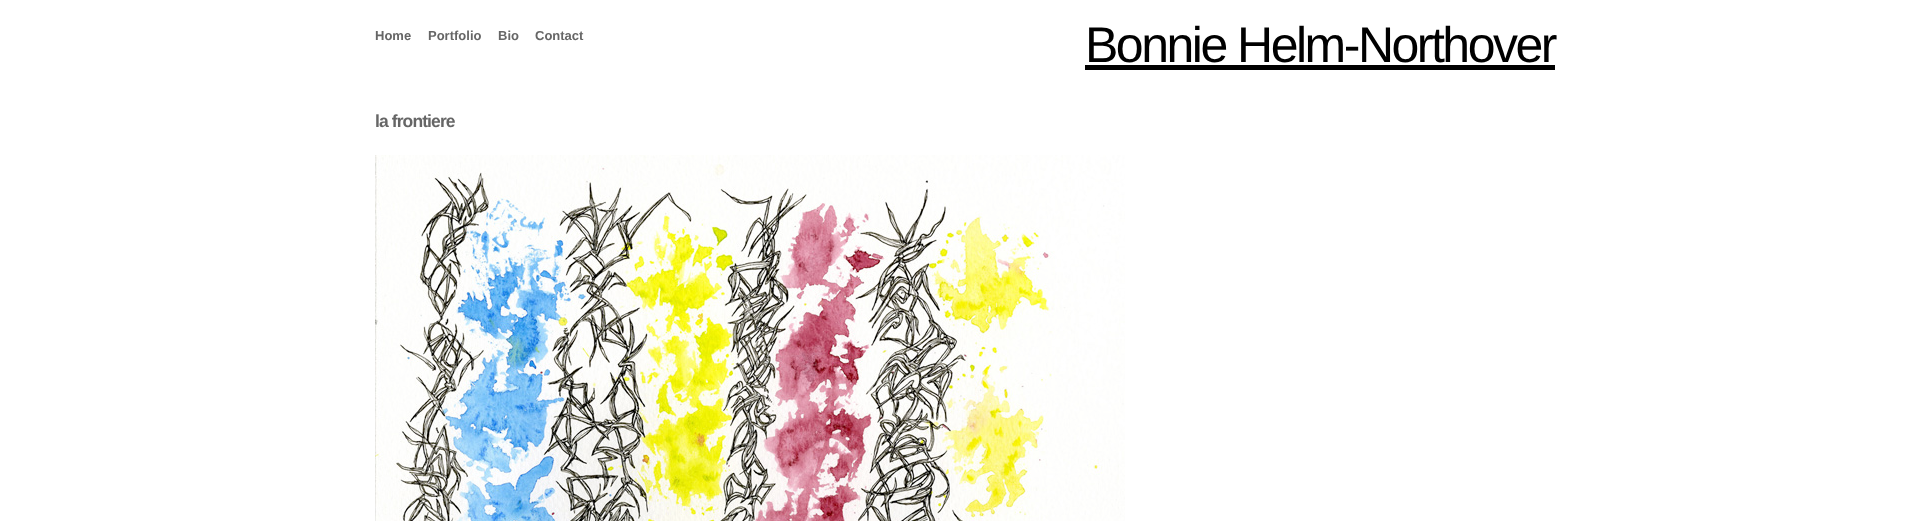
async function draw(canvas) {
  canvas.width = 1930;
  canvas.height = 521;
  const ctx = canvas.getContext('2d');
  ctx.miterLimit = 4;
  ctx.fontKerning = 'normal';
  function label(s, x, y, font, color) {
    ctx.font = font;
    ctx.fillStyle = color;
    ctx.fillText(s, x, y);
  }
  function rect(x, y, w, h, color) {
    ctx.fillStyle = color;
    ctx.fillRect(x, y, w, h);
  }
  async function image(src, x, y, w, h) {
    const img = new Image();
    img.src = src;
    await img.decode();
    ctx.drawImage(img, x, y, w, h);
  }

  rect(0, 0, 1930, 521, '#fff');
  label('Home', 375, 40, 'bold 13px Liberation Sans', '#666');
  label('Portfolio', 428, 40, 'bold 13px Liberation Sans', '#666');
  label('Bio', 498, 40, 'bold 13px Liberation Sans', '#666');
  label('Contact', 535, 40, 'bold 13px Liberation Sans', '#666');
  ctx.letterSpacing = '-2.5px';
  label('Bonnie Helm-Northover', 1085, 62, '50px Liberation Sans', '#000');
  rect(1085, 65, 470, 5, '#000');
  ctx.letterSpacing = '-0.9px';
  label('la frontiere', 375, 127, 'bold 17.5px Liberation Sans', '#666');
  await image('assets/img1.png', 375, 155, 750, 366);
}

draw(document.querySelector('canvas'));
